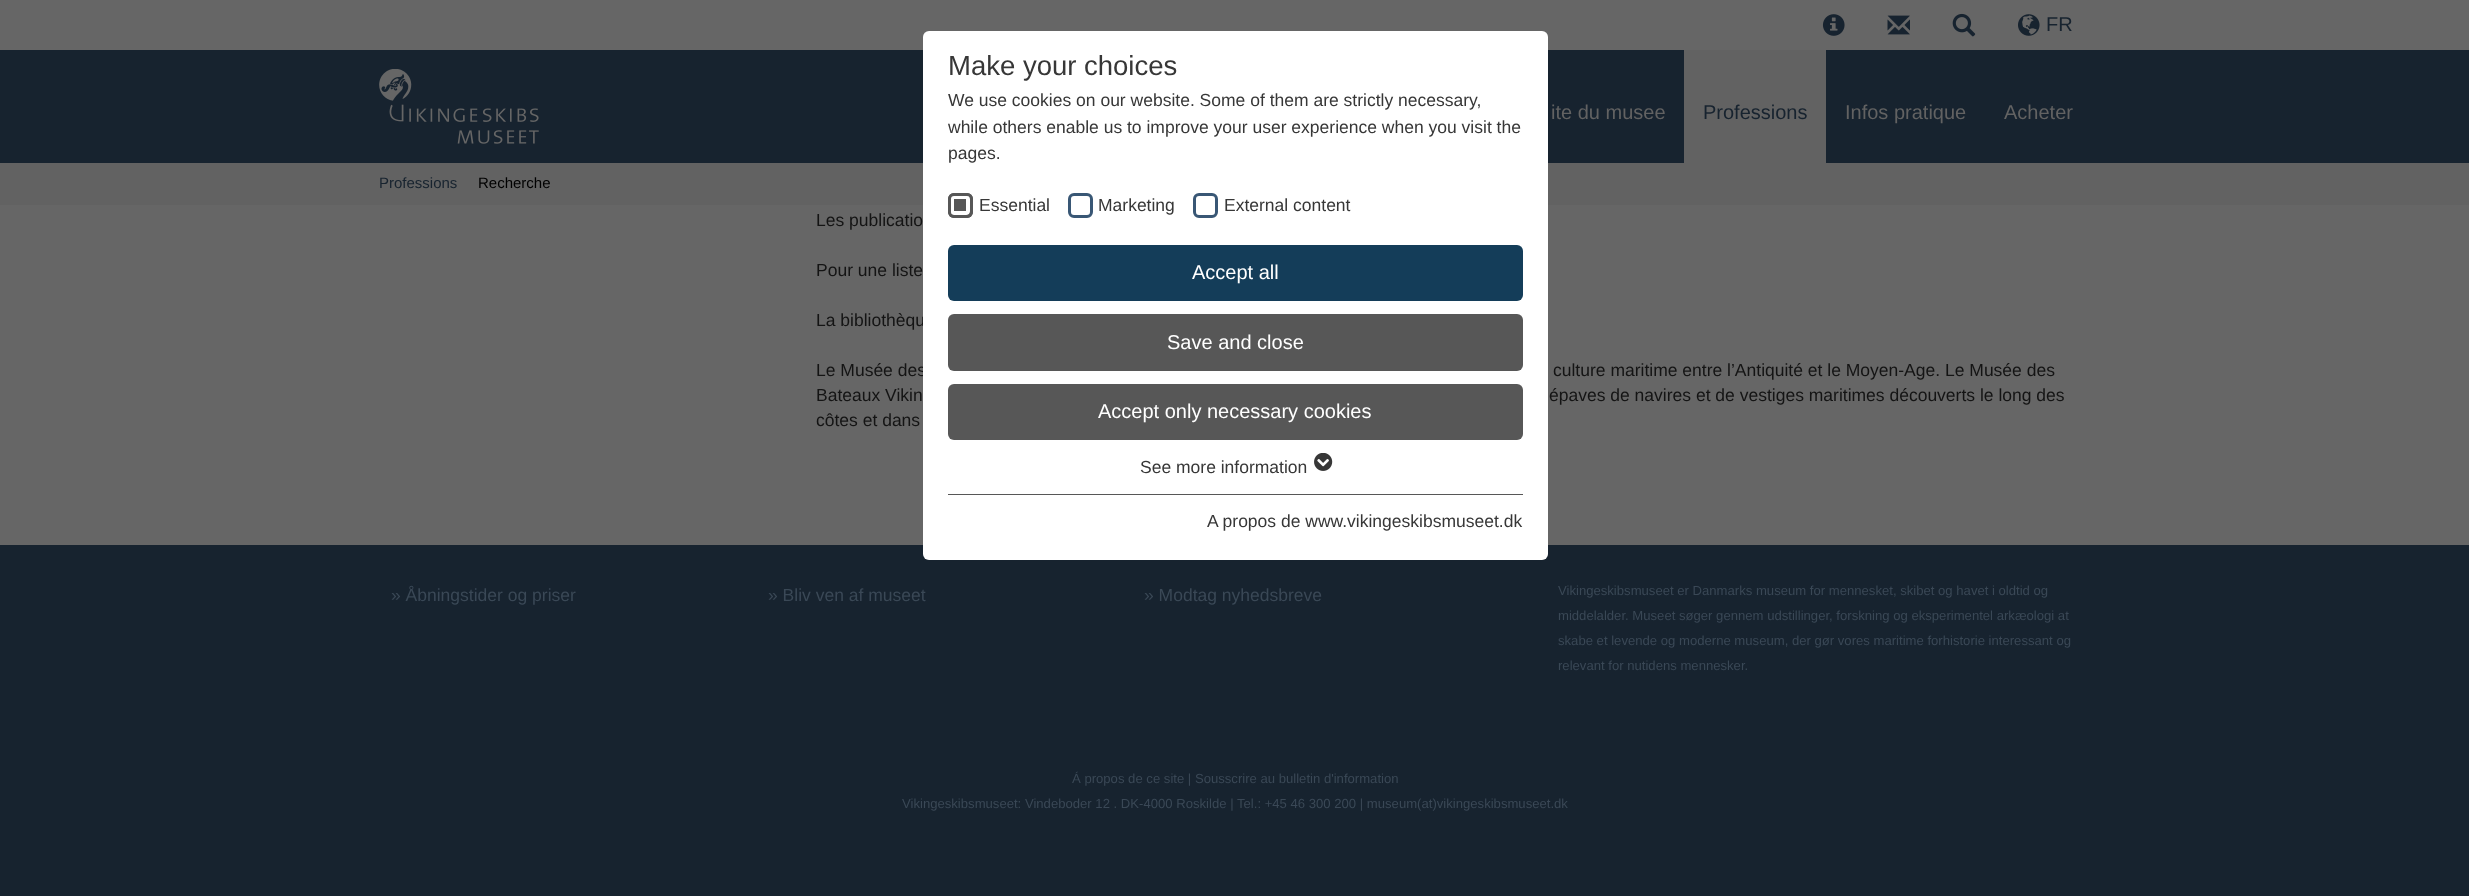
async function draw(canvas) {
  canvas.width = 2469;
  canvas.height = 896;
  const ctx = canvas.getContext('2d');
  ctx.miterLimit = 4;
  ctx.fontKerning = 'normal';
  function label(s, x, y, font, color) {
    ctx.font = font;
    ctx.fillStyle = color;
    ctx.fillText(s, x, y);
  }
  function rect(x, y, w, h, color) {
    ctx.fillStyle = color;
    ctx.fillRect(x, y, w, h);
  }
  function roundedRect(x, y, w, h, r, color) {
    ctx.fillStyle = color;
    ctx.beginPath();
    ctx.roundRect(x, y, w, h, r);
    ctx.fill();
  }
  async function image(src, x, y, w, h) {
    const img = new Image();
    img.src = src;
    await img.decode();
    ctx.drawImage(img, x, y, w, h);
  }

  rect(0, 0, 2469, 896, '#666');
  rect(0, 50, 2469, 113, '#17232f');
  await image('assets/img1.png', 1822, 14, 23, 22);
  await image('assets/img2.png', 1887, 15, 23, 20);
  await image('assets/img3.png', 1952, 13, 24, 24);
  await image('assets/img4.png', 2018, 14, 22, 22);
  label('FR', 2046, 31, '20px Liberation Sans', '#17232f');
  await image('assets/img5.png', 379, 69, 160, 75);
  label('ite du musee', 1551, 119, '20px Liberation Sans', '#626262');
  rect(1684, 50, 142, 113, '#626262');
  label('Professions', 1703, 119, '20px Liberation Sans', '#17232f');
  label('Infos pratique', 1845, 119, '20px Liberation Sans', '#626262');
  label('Acheter', 2004, 119, '20px Liberation Sans', '#626262');
  rect(0, 163, 2469, 42, '#626262');
  label('Professions', 379, 188, '15px Liberation Sans', '#17232f');
  label('Recherche', 478, 188, '15px Liberation Sans', '#000');
  label('Les publicatio', 816, 226, '17.5px Liberation Sans', '#141414');
  label('Pour une liste', 816, 276, '17.5px Liberation Sans', '#141414');
  label('La bibliothèqu', 816, 326, '17.5px Liberation Sans', '#141414');
  label('Le Musée des', 816, 376, '17.5px Liberation Sans', '#141414');
  label('culture maritime entre l’Antiquité et le Moyen-Age. Le Musée des', 1553, 376, '17.5px Liberation Sans', '#141414');
  label('Bateaux Vikin', 816, 401, '17.5px Liberation Sans', '#141414');
  label('épaves de navires et de vestiges maritimes découverts le long des', 1549, 401, '17.5px Liberation Sans', '#141414');
  label('côtes et dans', 816, 426, '17.5px Liberation Sans', '#141414');
  rect(0, 545, 2469, 351, '#17232f');
  label('» Åbningstider og priser', 391, 601, '17.5px Liberation Sans', '#3a4856');
  label('» Bliv ven af museet', 768, 601, '17.5px Liberation Sans', '#3a4856');
  label('» Modtag nyhedsbreve', 1144, 601, '17.5px Liberation Sans', '#3a4856');
  label('Vikingeskibsmuseet er Danmarks museum for mennesket, skibet og havet i oldtid og', 1558, 595, '13.12px Liberation Sans', '#3a4856');
  label('middelalder. Museet søger gennem udstillinger, forskning og eksperimentel arkæologi at', 1558, 620, '13.12px Liberation Sans', '#3a4856');
  label('skabe et levende og moderne museum, der gør vores maritime forhistorie interessant og', 1558, 645, '13.12px Liberation Sans', '#3a4856');
  label('relevant for nutidens mennesker.', 1558, 670, '13.12px Liberation Sans', '#3a4856');
  label('Á propos de ce site | Sousscrire au bulletin d\'information', 1072, 783, '13.12px Liberation Sans', '#3a4856');
  label('Vikingeskibsmuseet: Vindeboder 12 . DK-4000 Roskilde | Tel.: +45 46 300 200 | museum(at)vikingeskibsmuseet.dk', 902, 808, '13.12px Liberation Sans', '#3a4856');
  roundedRect(923, 31, 625, 529, 6, '#fff');
  label('Make your choices', 948, 75, '27.5px Liberation Sans', '#373737');
  label('We use cookies on our website. Some of them are strictly necessary,', 948, 106, '17.5px Liberation Sans', '#373737');
  label('while others enable us to improve your user experience when you visit the', 948, 133, '17.5px Liberation Sans', '#373737');
  label('pages.', 948, 159, '17.5px Liberation Sans', '#373737');
  roundedRect(948, 193, 25, 25, 6, '#575757');
  ctx.beginPath();
  ctx.roundRect(952, 197, 16, 16, 2);
  ctx.strokeStyle = '#fff';
  ctx.lineWidth = 4;
  ctx.stroke();
  ctx.beginPath();
  ctx.roundRect(949.5, 194.5, 22, 22, 4.5);
  ctx.strokeStyle = '#575757';
  ctx.lineWidth = 3;
  ctx.stroke();
  label('Essential', 979, 211, '17.5px Liberation Sans', '#373737');
  ctx.beginPath();
  ctx.roundRect(1069.5, 194.5, 22, 22, 4.5);
  ctx.strokeStyle = '#395775';
  ctx.stroke();
  label('Marketing', 1098, 211, '17.5px Liberation Sans', '#373737');
  ctx.beginPath();
  ctx.roundRect(1194.5, 194.5, 22, 22, 4.5);
  ctx.stroke();
  label('External content', 1224, 211, '17.5px Liberation Sans', '#373737');
  roundedRect(948, 245, 575, 56, 6, '#143d59');
  label('Accept all', 1192, 279, '20px Liberation Sans', '#fff');
  roundedRect(948, 314, 575, 57, 6, '#575757');
  label('Save and close', 1167, 349, '20px Liberation Sans', '#fff');
  roundedRect(948, 384, 575, 56, 6, '#575757');
  label('Accept only necessary cookies', 1098, 418, '20px Liberation Sans', '#fff');
  label('See more information', 1140, 473, '17.5px Liberation Sans', '#373737');
  await image('assets/img6.png', 1314, 453, 19, 18);
  rect(948, 494, 575, 1, '#575757');
  label('A propos de www.vikingeskibsmuseet.dk', 1207, 527, '17.5px Liberation Sans', '#373737');
}

draw(document.querySelector('canvas'));
